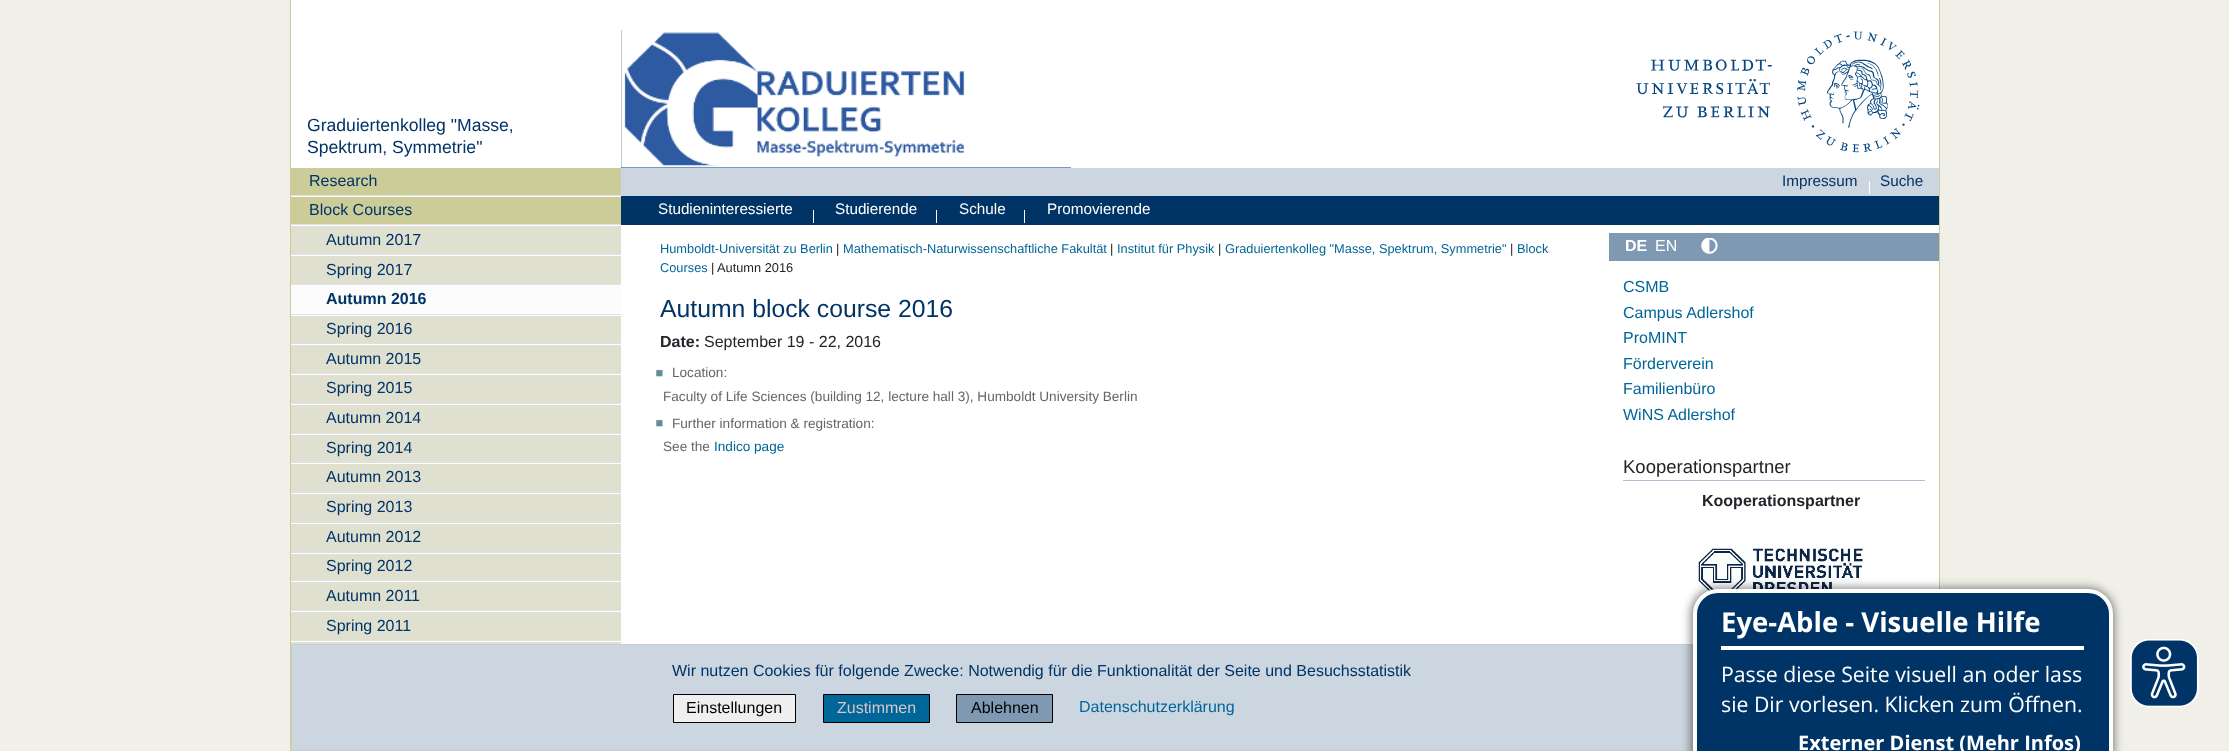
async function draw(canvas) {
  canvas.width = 2229;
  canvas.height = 751;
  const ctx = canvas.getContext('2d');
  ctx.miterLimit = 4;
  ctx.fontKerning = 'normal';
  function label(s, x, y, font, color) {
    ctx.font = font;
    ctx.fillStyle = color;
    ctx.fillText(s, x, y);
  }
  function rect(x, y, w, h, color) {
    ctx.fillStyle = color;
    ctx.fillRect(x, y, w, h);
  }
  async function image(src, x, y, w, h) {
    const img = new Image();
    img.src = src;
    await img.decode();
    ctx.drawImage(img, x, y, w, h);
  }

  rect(0, 0, 2229, 751, '#f0f0e8');
  rect(291, 0, 1648, 644, '#fff');
  rect(621, 30, 450, 138, '#036');
  await image('assets/img1.png', 621, 30, 450, 138);
  await image('assets/img2.png', 1636, 31, 284, 122);
  rect(1939, 0, 1, 589, '#cc9');
  rect(290, 0, 1, 751, '#cc9');
  label('Graduiertenkolleg "Masse,', 307, 131, '17.6px Liberation Sans', '#036');
  label('Spektrum, Symmetrie"', 307, 153, '17.6px Liberation Sans', '#036');
  rect(291, 168, 330, 27, '#cc9');
  label('Research', 309, 186, '16px Liberation Sans', '#036');
  rect(291, 197, 330, 27, '#cc9');
  rect(291, 195, 330, 1, '#dee2e6');
  label('Block Courses', 309, 215, '16px Liberation Sans', '#036');
  rect(291, 226, 330, 28, '#e0e0d1');
  rect(291, 224, 330, 1, '#dee2e6');
  label('Autumn 2017', 326, 245, '16px Liberation Sans', '#036');
  rect(291, 256, 330, 28, '#e0e0d1');
  rect(291, 254, 330, 1, '#dee2e6');
  label('Spring 2017', 326, 275, '16px Liberation Sans', '#036');
  rect(291, 284, 330, 1, '#dee2e6');
  rect(291, 286, 330, 28, '#fcfcfd');
  label('Autumn 2016', 326, 304, 'bold 16px Liberation Sans', '#036');
  rect(291, 316, 330, 27, '#e0e0d1');
  rect(291, 314, 330, 1, '#dee2e6');
  label('Spring 2016', 326, 334, '16px Liberation Sans', '#036');
  rect(291, 345, 330, 28, '#e0e0d1');
  rect(291, 343, 330, 1, '#dee2e6');
  label('Autumn 2015', 326, 364, '16px Liberation Sans', '#036');
  rect(291, 375, 330, 28, '#e0e0d1');
  rect(291, 373, 330, 1, '#dee2e6');
  label('Spring 2015', 326, 393, '16px Liberation Sans', '#036');
  rect(291, 405, 330, 28, '#e0e0d1');
  rect(291, 403, 330, 1, '#dee2e6');
  label('Autumn 2014', 326, 423, '16px Liberation Sans', '#036');
  rect(291, 435, 330, 26, '#e0e0d1');
  rect(291, 433, 330, 1, '#dee2e6');
  label('Spring 2014', 326, 453, '16px Liberation Sans', '#036');
  rect(291, 462, 330, 29, '#e0e0d1');
  rect(291, 461, 330, 1, '#dee2e6');
  rect(291, 463, 330, 1, '#fff');
  label('Autumn 2013', 326, 482, '16px Liberation Sans', '#036');
  rect(291, 492, 330, 29, '#e0e0d1');
  rect(291, 491, 330, 1, '#dee2e6');
  rect(291, 493, 330, 1, '#fff');
  label('Spring 2013', 326, 512, '16px Liberation Sans', '#036');
  rect(291, 522, 330, 29, '#e0e0d1');
  rect(291, 521, 330, 1, '#dee2e6');
  rect(291, 523, 330, 1, '#fff');
  label('Autumn 2012', 326, 542, '16px Liberation Sans', '#036');
  rect(291, 552, 330, 28, '#e0e0d1');
  rect(291, 551, 330, 1, '#dee2e6');
  rect(291, 553, 330, 1, '#fff');
  label('Spring 2012', 326, 571, '16px Liberation Sans', '#036');
  rect(291, 582, 330, 28, '#e0e0d1');
  rect(291, 580, 330, 1, '#dee2e6');
  label('Autumn 2011', 326, 601, '16px Liberation Sans', '#036');
  rect(291, 612, 330, 28, '#e0e0d1');
  rect(291, 610, 330, 1, '#dee2e6');
  label('Spring 2011', 326, 631, '16px Liberation Sans', '#036');
  rect(291, 642, 330, 2, '#e0e0d1');
  rect(291, 640, 330, 1, '#dee2e6');
  rect(621, 168, 1318, 28, '#ccd6e0');
  label('Impressum', 1782, 186, '15.25px Liberation Sans', '#036');
  rect(1869, 181, 1, 13, '#fff');
  label('Suche', 1880, 186, '15.25px Liberation Sans', '#036');
  rect(621, 196, 1318, 29, '#036');
  label('Studieninteressierte', 658, 214, '15.25px Liberation Sans', '#fff');
  label('Studierende', 835, 214, '15.25px Liberation Sans', '#fff');
  label('Schule', 959, 214, '15.25px Liberation Sans', '#fff');
  label('Promovierende', 1047, 214, '15.25px Liberation Sans', '#fff');
  rect(813, 210, 1, 13, '#fff');
  rect(936, 210, 1, 13, '#fff');
  rect(1024, 210, 1, 13, '#fff');
  label('Humboldt-Universität zu Berlin', 660, 253, '12.8px Liberation Sans', '#069');
  label('|', 836, 253, '12.8px Liberation Sans', '#212529');
  label('Mathematisch-Naturwissenschaftliche Fakultät', 843, 253, '12.8px Liberation Sans', '#069');
  label('|', 1110, 253, '12.8px Liberation Sans', '#212529');
  label('Institut für Physik', 1117, 253, '12.8px Liberation Sans', '#069');
  label('|', 1218, 253, '12.8px Liberation Sans', '#212529');
  label('Graduiertenkolleg "Masse, Spektrum, Symmetrie"', 1225, 253, '12.8px Liberation Sans', '#069');
  label('|', 1510, 253, '12.8px Liberation Sans', '#212529');
  label('Block', 1517, 253, '12.8px Liberation Sans', '#069');
  label('Courses', 660, 272, '12.8px Liberation Sans', '#069');
  label('|', 711, 272, '12.8px Liberation Sans', '#212529');
  label('Autumn 2016', 717, 272, '12.8px Liberation Sans', '#212529');
  label('Autumn block course 2016', 660, 317, '24.75px Liberation Sans', '#036');
  label('Date:', 660, 347, 'bold 16px Liberation Sans', '#212529');
  label('September 19 - 22, 2016', 704, 347, '16px Liberation Sans', '#212529');
  await image('assets/img3.png', 656, 369, 7, 8);
  label('Location:', 672, 377, '13.6px Liberation Sans', '#666');
  label('Faculty of Life Sciences (building 12, lecture hall 3), Humboldt University Berlin', 663, 401, '13.6px Liberation Sans', '#666');
  await image('assets/img3.png', 656, 419, 7, 8);
  label('Further information & registration:', 672, 428, '13.6px Liberation Sans', '#666');
  label('See the', 663, 451, '13.6px Liberation Sans', '#666');
  label('Indico page', 714, 451, '13.6px Liberation Sans', '#069');
  rect(1609, 233, 330, 28, '#8099b2');
  label('DE', 1625, 251, 'bold 16px Liberation Sans', '#fff');
  label('EN', 1655, 251, '16px Liberation Sans', '#fff');
  await image('assets/img4.png', 1701, 238, 17, 16);
  label('CSMB', 1623, 292, '16px Liberation Sans', '#069');
  label('Campus Adlershof', 1623, 318, '16px Liberation Sans', '#069');
  label('ProMINT', 1623, 343, '16px Liberation Sans', '#069');
  label('Förderverein', 1623, 369, '16px Liberation Sans', '#069');
  label('Familienbüro', 1623, 394, '16px Liberation Sans', '#069');
  label('WiNS Adlershof', 1623, 420, '16px Liberation Sans', '#069');
  rect(1623, 480, 302, 1, '#b2c1d1');
  label('Kooperationspartner', 1623, 473, '18.5px Liberation Sans', '#212529');
  label('Kooperationspartner', 1702, 506, 'bold 16px Liberation Sans', '#212529');
  await image('assets/img5.png', 1698, 548, 165, 47);
  rect(292, 645, 1401, 105, '#ccd6e0');
  ctx.strokeStyle = '#ccc';
  ctx.strokeRect(291.5, 644.5, 1649, 106);
  label('Wir nutzen Cookies für folgende Zwecke: Notwendig für die Funktionalität der Seite und Besuchsstatistik', 672, 676, '16px Liberation Sans', '#036');
  ctx.fillStyle = '#efefef';
  ctx.beginPath();
  ctx.rect(673.5, 694.5, 122, 28);
  ctx.fill();
  ctx.strokeStyle = '#000';
  ctx.stroke();
  label('Einstellungen', 686, 713, '16px Liberation Sans', '#000');
  ctx.fillStyle = '#069';
  ctx.beginPath();
  ctx.rect(823.5, 694.5, 106, 28);
  ctx.fill();
  ctx.stroke();
  label('Zustimmen', 837, 713, '16px Liberation Sans', '#d5c7c7');
  ctx.fillStyle = '#8099b2';
  ctx.beginPath();
  ctx.rect(956.5, 694.5, 96, 28);
  ctx.fill();
  ctx.stroke();
  label('Ablehnen', 971, 713, '16px Liberation Sans', '#000');
  label('Datenschutzerklärung', 1079, 712, '16px Liberation Sans', '#069');
  ctx.fillStyle = '#00000080';
  ctx.filter = 'blur(5px)';
  ctx.beginPath();
  ctx.roundRect(1691, 588, 423, 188, 26);
  ctx.fill();
  ctx.filter = 'none';
  ctx.fillStyle = '#036';
  ctx.beginPath();
  ctx.roundRect(1695, 591, 416, 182, 23);
  ctx.fill();
  ctx.strokeStyle = '#fff';
  ctx.lineWidth = 4;
  ctx.stroke();
  rect(1721, 646, 363, 4, '#fff');
  label('Eye-Able - Visuelle Hilfe', 1721, 632, 'bold 27.5px Open Sans', '#fff');
  label('Passe diese Seite visuell an oder lass', 1721, 682, '21.25px Open Sans', '#fff');
  label('sie Dir vorlesen. Klicken zum Öffnen.', 1721, 712, '21.25px Open Sans', '#fff');
  label('Externer Dienst (Mehr Infos)', 1798, 750, 'bold 20px Open Sans', '#fff');
  await image('assets/img6.png', 2130, 639, 69, 69);
}

draw(document.querySelector('canvas'));
